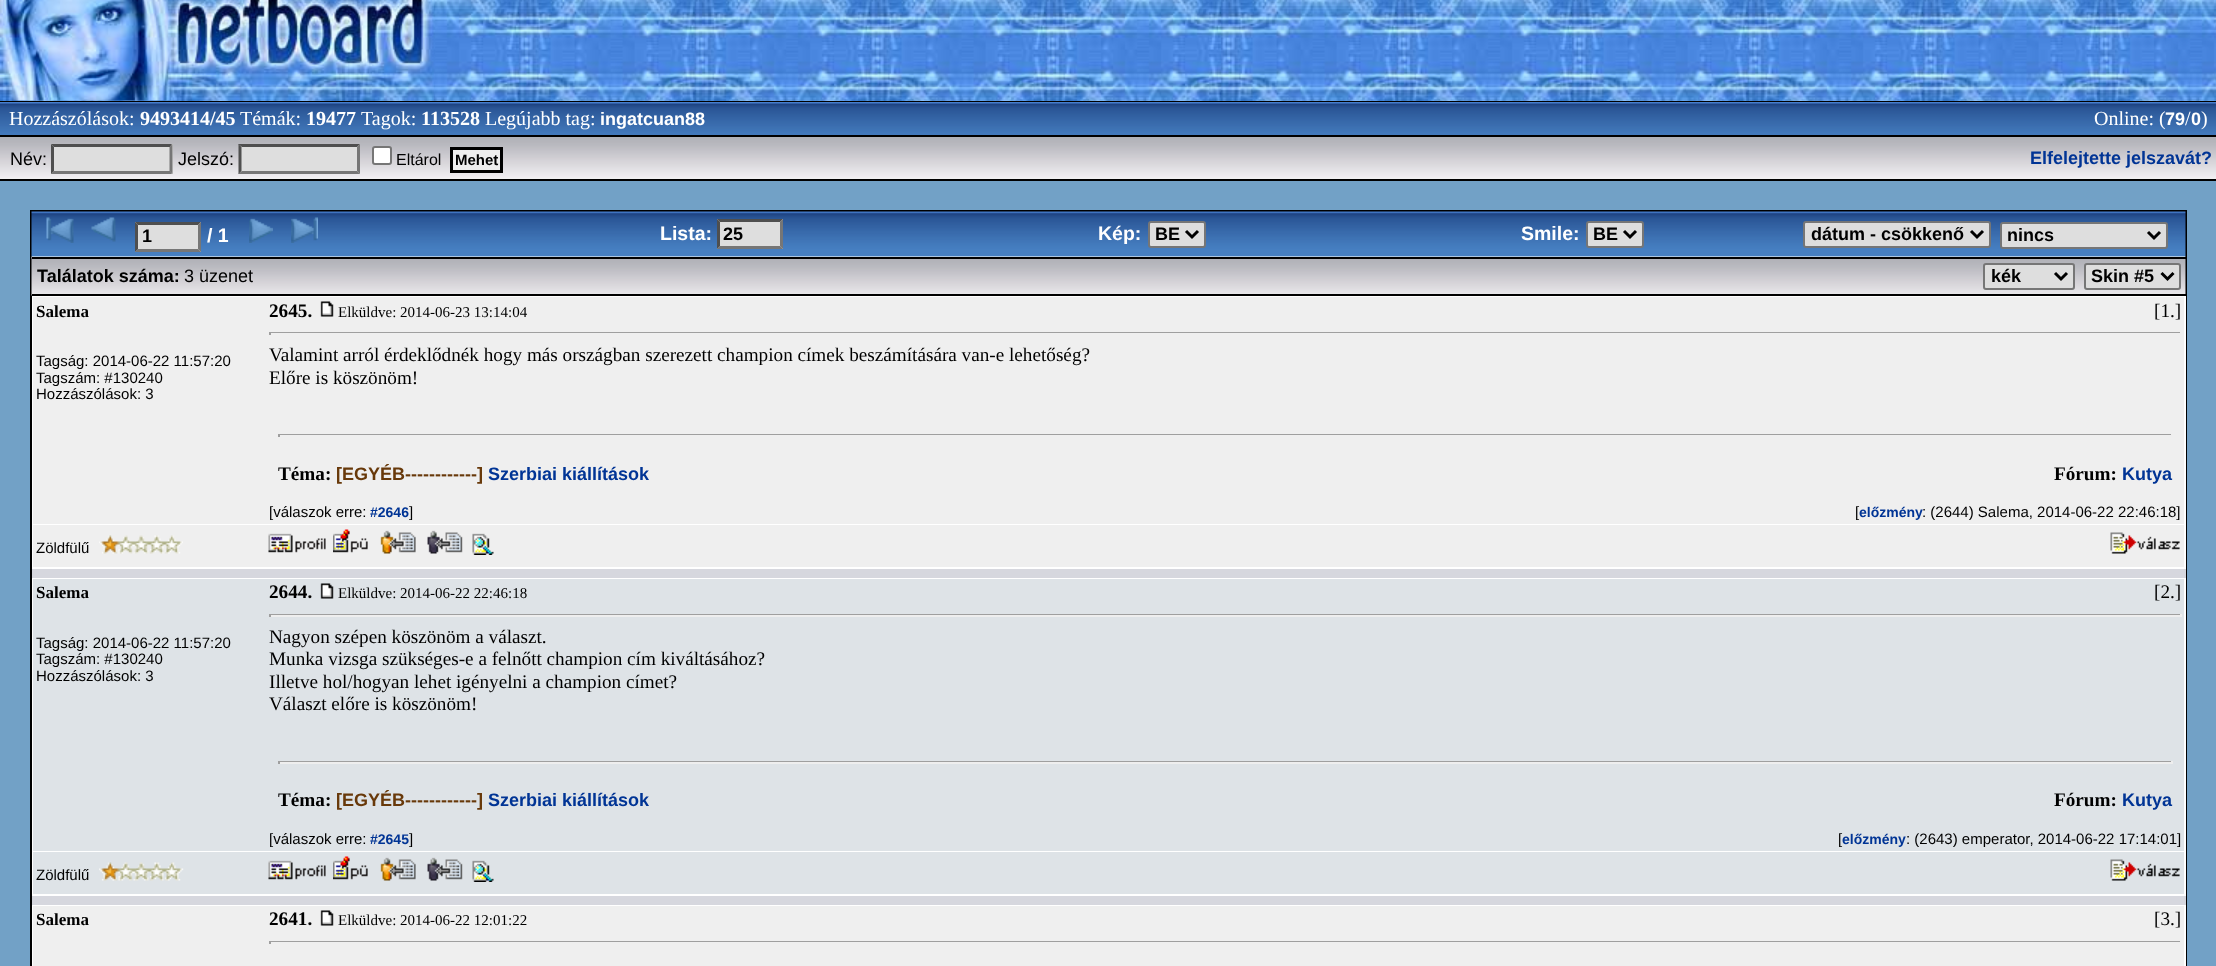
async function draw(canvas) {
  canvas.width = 2216;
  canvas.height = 966;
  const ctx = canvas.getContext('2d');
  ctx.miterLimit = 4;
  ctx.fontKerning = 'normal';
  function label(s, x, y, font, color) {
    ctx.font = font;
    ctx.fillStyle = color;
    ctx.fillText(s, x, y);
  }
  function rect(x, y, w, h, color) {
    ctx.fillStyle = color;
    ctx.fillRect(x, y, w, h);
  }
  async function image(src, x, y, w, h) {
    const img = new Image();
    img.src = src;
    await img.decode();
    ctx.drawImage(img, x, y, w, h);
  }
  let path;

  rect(0, 0, 2216, 966, '#72a1c6');
  await image('assets/img1.png', 0, 0, 2216, 101);
  rect(0, 101, 2216, 1, '#000');
  await image('assets/img2.png', 0, 0, 434, 101);
  await image('assets/img3.png', 0, 102, 2216, 33);
  label('Hozzászólások:', 9, 125, '20px Liberation Serif', '#fff');
  label('9493414/45', 140, 125, 'bold 20px Liberation Serif', '#fff');
  label('Témák:', 240, 125, '20px Liberation Serif', '#fff');
  label('19477', 306, 125, 'bold 20px Liberation Serif', '#fff');
  label('Tagok:', 361, 125, '20px Liberation Serif', '#fff');
  label('113528', 421, 125, 'bold 20px Liberation Serif', '#fff');
  label('Legújabb tag:', 485, 125, '20px Liberation Serif', '#fff');
  label('ingatcuan88', 600, 125, 'bold 18px Liberation Sans', '#fff');
  label('Online: (', 2094, 125, '20px Liberation Serif', '#fff');
  label('79', 2165, 125, 'bold 18px Liberation Sans', '#fff');
  label('/', 2185, 125, '20px Liberation Serif', '#fff');
  label('0', 2191, 125, 'bold 18px Liberation Sans', '#fff');
  label(')', 2201, 125, '20px Liberation Serif', '#fff');
  await image('assets/img4.png', 0, 137, 2216, 42);
  rect(0, 135, 2216, 2, '#000');
  rect(0, 179, 2216, 2, '#000');
  label('Név:', 10, 165, '18px Liberation Sans', '#000');
  rect(51, 144, 122, 30, '#dedede');
  ctx.fillStyle = '#4f4f4f';
  path = new Path2D('M51 144H172L170 147H54Z');
  ctx.fill(path);
  ctx.fillStyle = '#767676';
  path = new Path2D('M172.5 144V174L169.5 171V147Z');
  ctx.fill(path);
  path = new Path2D('M172 174H51L54 171H170Z');
  ctx.fill(path);
  ctx.fillStyle = '#4f4f4f';
  path = new Path2D('M51 174V144L54 147V171Z');
  ctx.fill(path);
  label('Jelszó:', 178, 165, '18px Liberation Sans', '#000');
  rect(239, 144, 121, 30, '#dedede');
  ctx.fillStyle = '#4f4f4f';
  path = new Path2D('M238 144H360L357 147H242Z');
  ctx.fill(path);
  ctx.fillStyle = '#767676';
  path = new Path2D('M360 144V174L357 171V147Z');
  ctx.fill(path);
  path = new Path2D('M360 174H238L242 171H357Z');
  ctx.fill(path);
  ctx.fillStyle = '#4f4f4f';
  path = new Path2D('M238.5 174V144L241.5 147V171Z');
  ctx.fill(path);
  ctx.fillStyle = '#fff';
  ctx.beginPath();
  ctx.roundRect(373, 147, 18, 17, 2);
  ctx.fill();
  ctx.strokeStyle = '#767676';
  ctx.lineWidth = 2;
  ctx.stroke();
  label('Eltárol', 396, 165, '16px Liberation Sans', '#000');
  ctx.fillStyle = '#eee';
  ctx.beginPath();
  ctx.rect(451.5, 148.5, 50, 23);
  ctx.fill();
  ctx.strokeStyle = '#000';
  ctx.lineWidth = 3;
  ctx.stroke();
  label('Mehet', 455, 165, 'bold 15px Liberation Sans', '#000');
  label('Elfelejtette jelszavát?', 2030, 164, 'bold 18px Liberation Sans', '#003495');
  ctx.lineWidth = 2;
  ctx.strokeRect(31, 211, 2155, 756);
  await image('assets/img5.png', 31, 211, 2155, 46);
  await image('assets/img6.png', 46, 217, 28, 26);
  await image('assets/img7.png', 91, 217, 25, 25);
  rect(135, 222, 66, 30, '#dedede');
  ctx.fillStyle = '#4f4f4f';
  path = new Path2D('M135 222H201L198 225H138Z');
  ctx.fill(path);
  ctx.fillStyle = '#767676';
  path = new Path2D('M201 222V252L198 249V225Z');
  ctx.fill(path);
  path = new Path2D('M201 252H135L138 249H198Z');
  ctx.fill(path);
  ctx.fillStyle = '#4f4f4f';
  path = new Path2D('M135 252V222L138 225V249Z');
  ctx.fill(path);
  label('1', 142, 242, 'bold 18px Liberation Sans', '#000');
  label('/ 1', 207, 242, 'bold 19.5px Liberation Sans', '#fff');
  await image('assets/img8.png', 249, 218, 24, 25);
  await image('assets/img9.png', 291, 217, 27, 26);
  label('Lista:', 660, 240, 'bold 19.5px Liberation Sans', '#fff');
  rect(717, 219, 66, 30, '#dedede');
  ctx.fillStyle = '#4f4f4f';
  path = new Path2D('M717 219H783L780 222H720Z');
  ctx.fill(path);
  ctx.fillStyle = '#767676';
  path = new Path2D('M783 219V249L780 246V222Z');
  ctx.fill(path);
  path = new Path2D('M783 249H717L720 246H780Z');
  ctx.fill(path);
  ctx.fillStyle = '#4f4f4f';
  path = new Path2D('M717 249V219L720 222V246Z');
  ctx.fill(path);
  label('25', 723, 240, 'bold 18px Liberation Sans', '#000');
  label('Kép:', 1098, 240, 'bold 19.5px Liberation Sans', '#fff');
  ctx.fillStyle = '#dedede';
  ctx.beginPath();
  ctx.roundRect(1149, 222, 56, 25, 2);
  ctx.fill();
  ctx.strokeStyle = '#767676';
  ctx.stroke();
  path = new Path2D('M1186 231L1192 237L1198 231');
  ctx.strokeStyle = '#000';
  ctx.lineWidth = 3;
  ctx.stroke(path);
  label('BE', 1155, 240, 'bold 18px Liberation Sans', '#000');
  label('Smile:', 1521, 240, 'bold 19.5px Liberation Sans', '#fff');
  ctx.fillStyle = '#dedede';
  ctx.beginPath();
  ctx.roundRect(1587, 222, 56, 25, 2);
  ctx.fill();
  ctx.strokeStyle = '#767676';
  ctx.lineWidth = 2;
  ctx.stroke();
  path = new Path2D('M1624 231L1630 237L1636 231');
  ctx.strokeStyle = '#000';
  ctx.lineWidth = 3;
  ctx.stroke(path);
  label('BE', 1593, 240, 'bold 18px Liberation Sans', '#000');
  ctx.fillStyle = '#dedede';
  ctx.beginPath();
  ctx.roundRect(1804, 222, 186, 25, 2);
  ctx.fill();
  ctx.strokeStyle = '#767676';
  ctx.lineWidth = 2;
  ctx.stroke();
  path = new Path2D('M1971 231L1977 237L1983 231');
  ctx.strokeStyle = '#000';
  ctx.lineWidth = 3;
  ctx.stroke(path);
  label('dátum - csökkenő', 1811, 240, 'bold 18px Liberation Sans', '#000');
  ctx.fillStyle = '#dedede';
  ctx.beginPath();
  ctx.roundRect(2001, 223, 166, 25, 2);
  ctx.fill();
  ctx.strokeStyle = '#767676';
  ctx.lineWidth = 2;
  ctx.stroke();
  path = new Path2D('M2148 232L2154 238L2160 232');
  ctx.strokeStyle = '#000';
  ctx.lineWidth = 3;
  ctx.stroke(path);
  label('nincs', 2007, 241, 'bold 18px Liberation Sans', '#000');
  await image('assets/img10.png', 31, 256, 2155, 40);
  rect(32, 257, 2154, 2, '#000');
  rect(32, 294, 2154, 2, '#000');
  label('Találatok száma:', 37, 282, 'bold 18px Liberation Sans', '#000');
  label('3 üzenet', 184, 282, '18px Liberation Sans', '#000');
  ctx.fillStyle = '#dedede';
  ctx.beginPath();
  ctx.roundRect(1984, 264, 90, 25, 2);
  ctx.fill();
  ctx.strokeStyle = '#767676';
  ctx.lineWidth = 2;
  ctx.stroke();
  path = new Path2D('M2055 273L2061 279L2067 273');
  ctx.strokeStyle = '#000';
  ctx.lineWidth = 3;
  ctx.stroke(path);
  label('kék', 1991, 282, 'bold 18px Liberation Sans', '#000');
  ctx.fillStyle = '#dedede';
  ctx.beginPath();
  ctx.roundRect(2085, 264, 95, 25, 2);
  ctx.fill();
  ctx.strokeStyle = '#767676';
  ctx.lineWidth = 2;
  ctx.stroke();
  path = new Path2D('M2161.5 273L2167.5 279L2173.5 273');
  ctx.strokeStyle = '#000';
  ctx.lineWidth = 3;
  ctx.stroke(path);
  label('Skin #5', 2091, 282, 'bold 18px Liberation Sans', '#000');
  rect(32, 296, 2154, 273, '#fff');
  rect(33, 297, 2151, 227, '#efefef');
  label('Salema', 36, 317, 'bold 17px Liberation Serif', '#000');
  label('Tagság: 2014-06-22 11:57:20', 36, 366, '15px Liberation Sans', '#000');
  label('Tagszám: #130240', 36, 383, '15px Liberation Sans', '#000');
  label('Hozzászólások: 3', 36, 399, '15px Liberation Sans', '#000');
  label('2645.', 269, 317, 'bold 19.2px Liberation Serif', '#000');
  await image('assets/img11.png', 320, 301, 14, 16);
  label('Elküldve: 2014-06-23 13:14:04', 338, 317, '15px Liberation Serif', '#000');
  label('[1.]', 2154, 317, '19.2px Liberation Serif', '#000');
  rect(269, 332, 1912, 1, '#9f9f9f');
  rect(2180, 332, 1, 3, '#eee');
  rect(269, 332, 2, 3, '#9f9f9f');
  label('Valamint arról érdeklődnék hogy más országban szerezett champion címek beszámítására van-e lehetőség?', 269, 361, '19.2px Liberation Serif', '#000');
  label('Előre is köszönöm!', 269, 384, '19.2px Liberation Serif', '#000');
  rect(278, 434, 1894, 1, '#9f9f9f');
  rect(2171, 434, 1, 3, '#eee');
  rect(278, 434, 2, 3, '#9f9f9f');
  label('Téma:', 278, 480, 'bold 19.2px Liberation Serif', '#000');
  label('[EGYÉB------------]', 336, 480, 'bold 18px Liberation Sans', '#68390a');
  label('Szerbiai kiállítások', 488, 480, 'bold 18px Liberation Sans', '#003495');
  label('Fórum:', 2054, 480, 'bold 19.2px Liberation Serif', '#000');
  label('Kutya', 2122, 480, 'bold 18px Liberation Sans', '#003495');
  label('[válaszok erre:', 269, 517, '15px Liberation Sans', '#000');
  label('#2646', 370, 517, 'bold 14px Liberation Sans', '#003495');
  label(']', 409, 517, '15px Liberation Sans', '#000');
  label('[', 1855, 517, '15px Liberation Sans', '#000');
  label('előzmény', 1859, 517, 'bold 14px Liberation Sans', '#003495');
  label(': (2644) Salema, 2014-06-22 22:46:18]', 1922, 517, '15px Liberation Sans', '#000');
  rect(33, 525, 2151, 42, '#efefef');
  label('Zöldfülű', 36, 553, '15px Liberation Sans', '#000');
  await image('assets/img12.png', 99, 535, 84, 19);
  await image('assets/img13.png', 268, 533, 58, 20);
  await image('assets/img14.png', 333, 529, 35, 24);
  await image('assets/img15.png', 380, 530, 36, 24);
  await image('assets/img16.png', 427, 530, 36, 24);
  await image('assets/img17.png', 472, 533, 22, 22);
  await image('assets/img18.png', 2110, 532, 70, 22);
  rect(32, 569, 2154, 9, '#d6d7de');
  rect(32, 578, 2154, 318, '#fff');
  rect(33, 579, 2151, 272, '#dee3e7');
  label('Salema', 36, 598, 'bold 17px Liberation Serif', '#000');
  label('Tagság: 2014-06-22 11:57:20', 36, 648, '15px Liberation Sans', '#000');
  label('Tagszám: #130240', 36, 664, '15px Liberation Sans', '#000');
  label('Hozzászólások: 3', 36, 681, '15px Liberation Sans', '#000');
  label('2644.', 269, 598, 'bold 19.2px Liberation Serif', '#000');
  await image('assets/img19.png', 320, 583, 14, 16);
  label('Elküldve: 2014-06-22 22:46:18', 338, 598, '15px Liberation Serif', '#000');
  label('[2.]', 2154, 598, '19.2px Liberation Serif', '#000');
  rect(269, 614, 1912, 1, '#9f9f9f');
  rect(2180, 614, 2, 3, '#eee');
  rect(269, 615, 1912, 2, '#eee');
  rect(269, 614, 2, 3, '#9f9f9f');
  label('Nagyon szépen köszönöm a választ.', 269, 643, '19.2px Liberation Serif', '#000');
  label('Munka vizsga szükséges-e a felnőtt champion cím kiváltásához?', 269, 665, '19.2px Liberation Serif', '#000');
  label('Illetve hol/hogyan lehet igényelni a champion címet?', 269, 688, '19.2px Liberation Serif', '#000');
  label('Választ előre is köszönöm!', 269, 710, '19.2px Liberation Serif', '#000');
  rect(278, 761, 1894, 1, '#9f9f9f');
  rect(2171, 761, 2, 3, '#eee');
  rect(278, 762, 1894, 2, '#eee');
  rect(278, 761, 2, 3, '#9f9f9f');
  label('Téma:', 278, 806, 'bold 19.2px Liberation Serif', '#000');
  label('[EGYÉB------------]', 336, 806, 'bold 18px Liberation Sans', '#68390a');
  label('Szerbiai kiállítások', 488, 806, 'bold 18px Liberation Sans', '#003495');
  label('Fórum:', 2054, 806, 'bold 19.2px Liberation Serif', '#000');
  label('Kutya', 2122, 806, 'bold 18px Liberation Sans', '#003495');
  label('[válaszok erre:', 269, 844, '15px Liberation Sans', '#000');
  label('#2645', 370, 844, 'bold 14px Liberation Sans', '#003495');
  label(']', 409, 844, '15px Liberation Sans', '#000');
  label('[', 1838, 844, '15px Liberation Sans', '#000');
  label('előzmény', 1842, 844, 'bold 14px Liberation Sans', '#003495');
  label(': (2643) emperator, 2014-06-22 17:14:01]', 1906, 844, '15px Liberation Sans', '#000');
  rect(33, 852, 2151, 42, '#dee3e7');
  label('Zöldfülű', 36, 880, '15px Liberation Sans', '#000');
  await image('assets/img20.png', 99, 862, 85, 19);
  await image('assets/img21.png', 268, 860, 58, 20);
  await image('assets/img22.png', 333, 856, 35, 24);
  await image('assets/img23.png', 380, 857, 36, 24);
  await image('assets/img24.png', 427, 857, 36, 24);
  await image('assets/img25.png', 472, 860, 22, 22);
  await image('assets/img26.png', 2110, 859, 70, 22);
  rect(32, 896, 2154, 9, '#d6d7de');
  rect(32, 905, 2154, 61, '#fff');
  rect(33, 906, 2151, 60, '#efefef');
  label('Salema', 36, 925, 'bold 17px Liberation Serif', '#000');
  label('2641.', 269, 925, 'bold 19.2px Liberation Serif', '#000');
  await image('assets/img11.png', 320, 910, 14, 16);
  label('Elküldve: 2014-06-22 12:01:22', 338, 925, '15px Liberation Serif', '#000');
  label('[3.]', 2154, 925, '19.2px Liberation Serif', '#000');
  rect(269, 941, 1912, 1, '#9f9f9f');
  rect(2180, 941, 1, 3, '#eee');
  rect(269, 941, 2, 3, '#9f9f9f');
}

draw(document.querySelector('canvas'));
